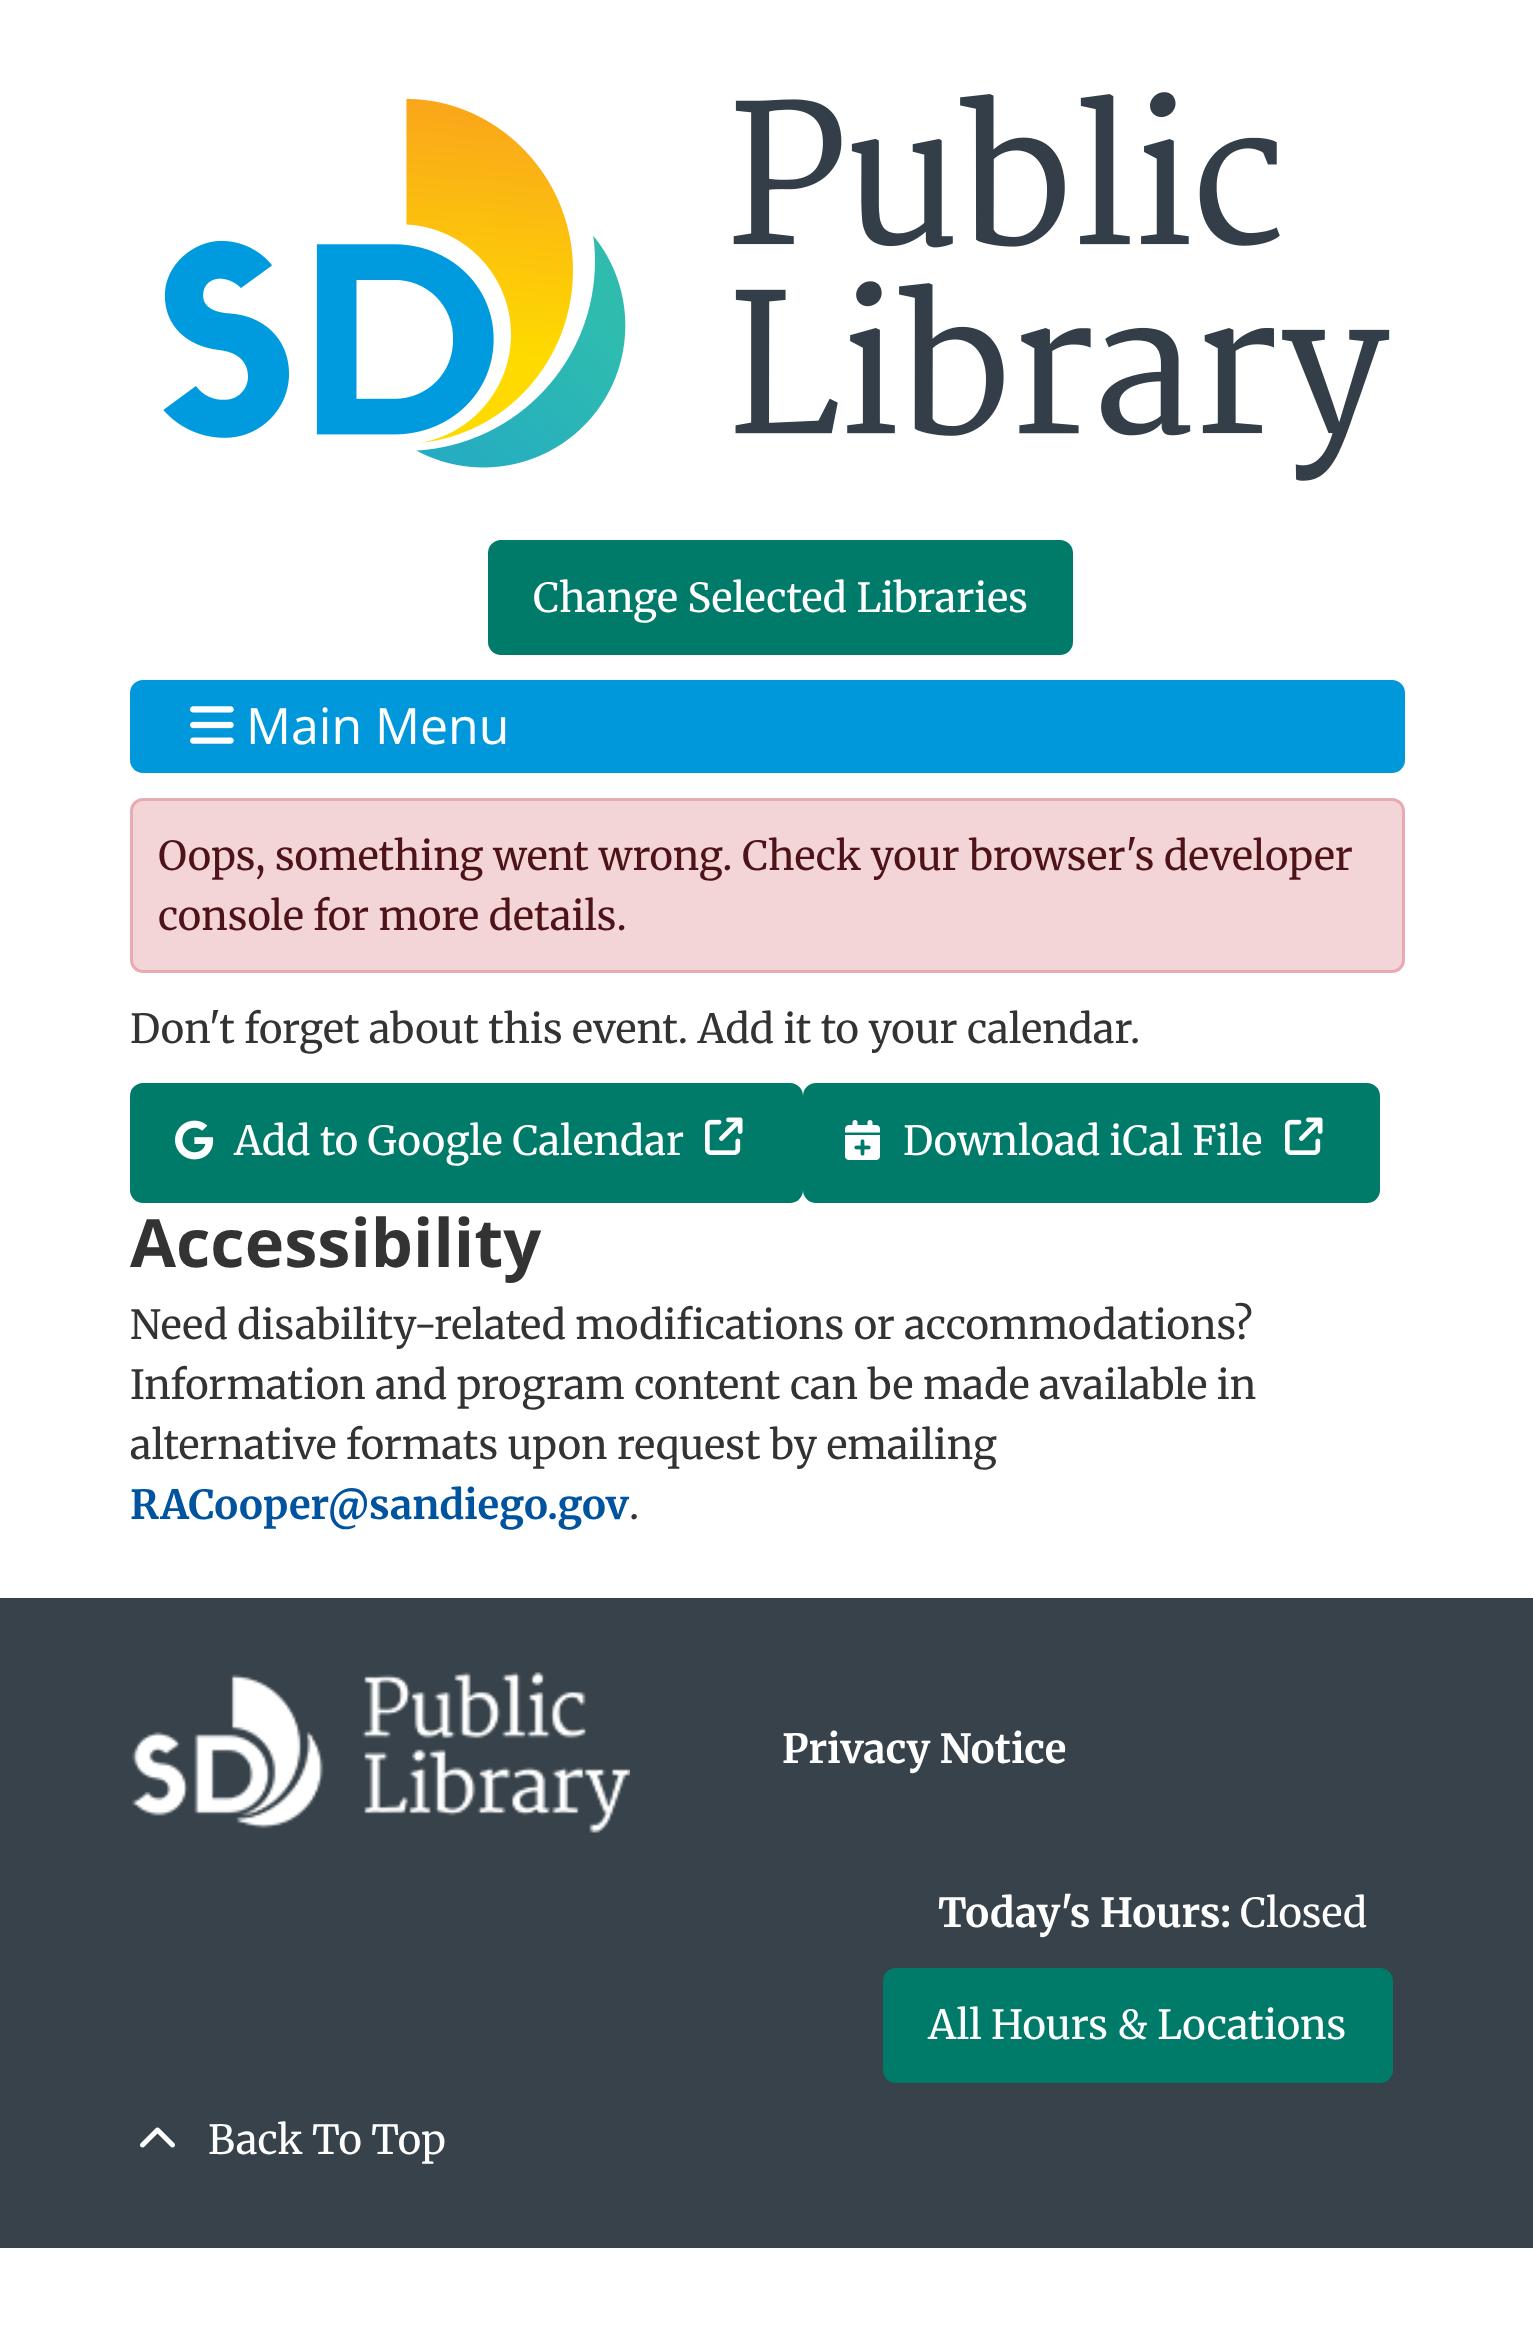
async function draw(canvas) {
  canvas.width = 1533;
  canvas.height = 2338;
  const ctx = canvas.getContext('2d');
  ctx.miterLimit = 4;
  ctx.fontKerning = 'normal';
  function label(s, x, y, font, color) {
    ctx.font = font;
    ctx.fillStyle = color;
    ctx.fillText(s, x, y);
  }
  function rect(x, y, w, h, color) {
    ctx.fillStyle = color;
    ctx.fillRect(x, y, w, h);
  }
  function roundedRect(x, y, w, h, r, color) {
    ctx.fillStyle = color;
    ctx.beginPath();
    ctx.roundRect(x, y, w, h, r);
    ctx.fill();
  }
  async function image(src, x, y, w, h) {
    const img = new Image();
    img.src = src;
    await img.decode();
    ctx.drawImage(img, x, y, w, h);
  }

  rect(0, 0, 1533, 2338, '#fff');
  await image('assets/img1.png', 163, 92, 1227, 389);
  ctx.fillStyle = '#007b69';
  ctx.beginPath();
  ctx.roundRect(489.5, 541.5, 582, 112, 11.5);
  ctx.fill();
  ctx.strokeStyle = '#007b69';
  ctx.lineWidth = 3;
  ctx.stroke();
  label('Change Selected Libraries', 533, 612, '40px Merriweather', '#fff');
  roundedRect(130, 680, 1275, 93, 13, '#0098db');
  await image('assets/img2.png', 190, 706, 44, 38);
  label('Main Menu', 246, 744, '50px Open Sans', '#fff');
  ctx.fillStyle = '#f3d5d8';
  ctx.beginPath();
  ctx.roundRect(131.5, 799.5, 1272, 172, 11.5);
  ctx.fill();
  ctx.strokeStyle = '#e7acb1';
  ctx.stroke();
  label('Oops, something went wrong. Check your browser\'s developer', 158, 870, '40px Merriweather', '#4e1318');
  label('console for more details.', 158, 930, '40px Merriweather', '#4e1318');
  label('Don\'t forget about this event. Add it to your calendar.', 130, 1043, '40px Merriweather', '#333');
  ctx.fillStyle = '#007b69';
  ctx.beginPath();
  ctx.roundRect(131.5, 1084.5, 670, 117, 11.5);
  ctx.fill();
  ctx.strokeStyle = '#007b69';
  ctx.stroke();
  await image('assets/img3.png', 175, 1120, 39, 40);
  label('Add to Google Calendar', 234, 1155, '40px Merriweather', '#fff');
  await image('assets/img4.png', 705, 1117, 38, 38);
  ctx.fillStyle = '#007b69';
  ctx.beginPath();
  ctx.roundRect(804.5, 1084.5, 574, 117, 11.5);
  ctx.fill();
  ctx.stroke();
  await image('assets/img5.png', 845, 1120, 35, 40);
  label('Download iCal File', 903, 1155, '40px Merriweather', '#fff');
  await image('assets/img4.png', 1285, 1117, 38, 38);
  label('Accessibility', 130, 1267, 'bold 66.75px Open Sans', '#333');
  label('Need disability-related modifications or accommodations?', 130, 1339, '40px Merriweather', '#333');
  label('Information and program content can be made available in', 130, 1399, '40px Merriweather', '#333');
  label('alternative formats upon request by emailing', 130, 1459, '40px Merriweather', '#333');
  label('RACooper@sandiego.gov', 130, 1519, 'bold 40px Merriweather', '#00549f');
  label('.', 629, 1519, '40px Merriweather', '#333');
  rect(0, 1598, 1533, 650, '#37424a');
  await image('assets/img6.png', 132, 1672, 498, 161);
  label('Privacy Notice', 782, 1763, 'bold 40px Merriweather', '#fff');
  label('Today\'s Hours:', 938, 1927, 'bold 40px Merriweather', '#fff');
  label('Closed', 1240, 1927, '40px Merriweather', '#fff');
  ctx.fillStyle = '#007b69';
  ctx.beginPath();
  ctx.roundRect(884.5, 1969.5, 507, 112, 11.5);
  ctx.fill();
  ctx.stroke();
  label('All Hours & Locations', 928, 2039, '40px Merriweather', '#fff');
  await image('assets/img7.png', 140, 2127, 35, 21);
  label('Back To Top', 208, 2154, '40px Merriweather', '#fff');
}

draw(document.querySelector('canvas'));
